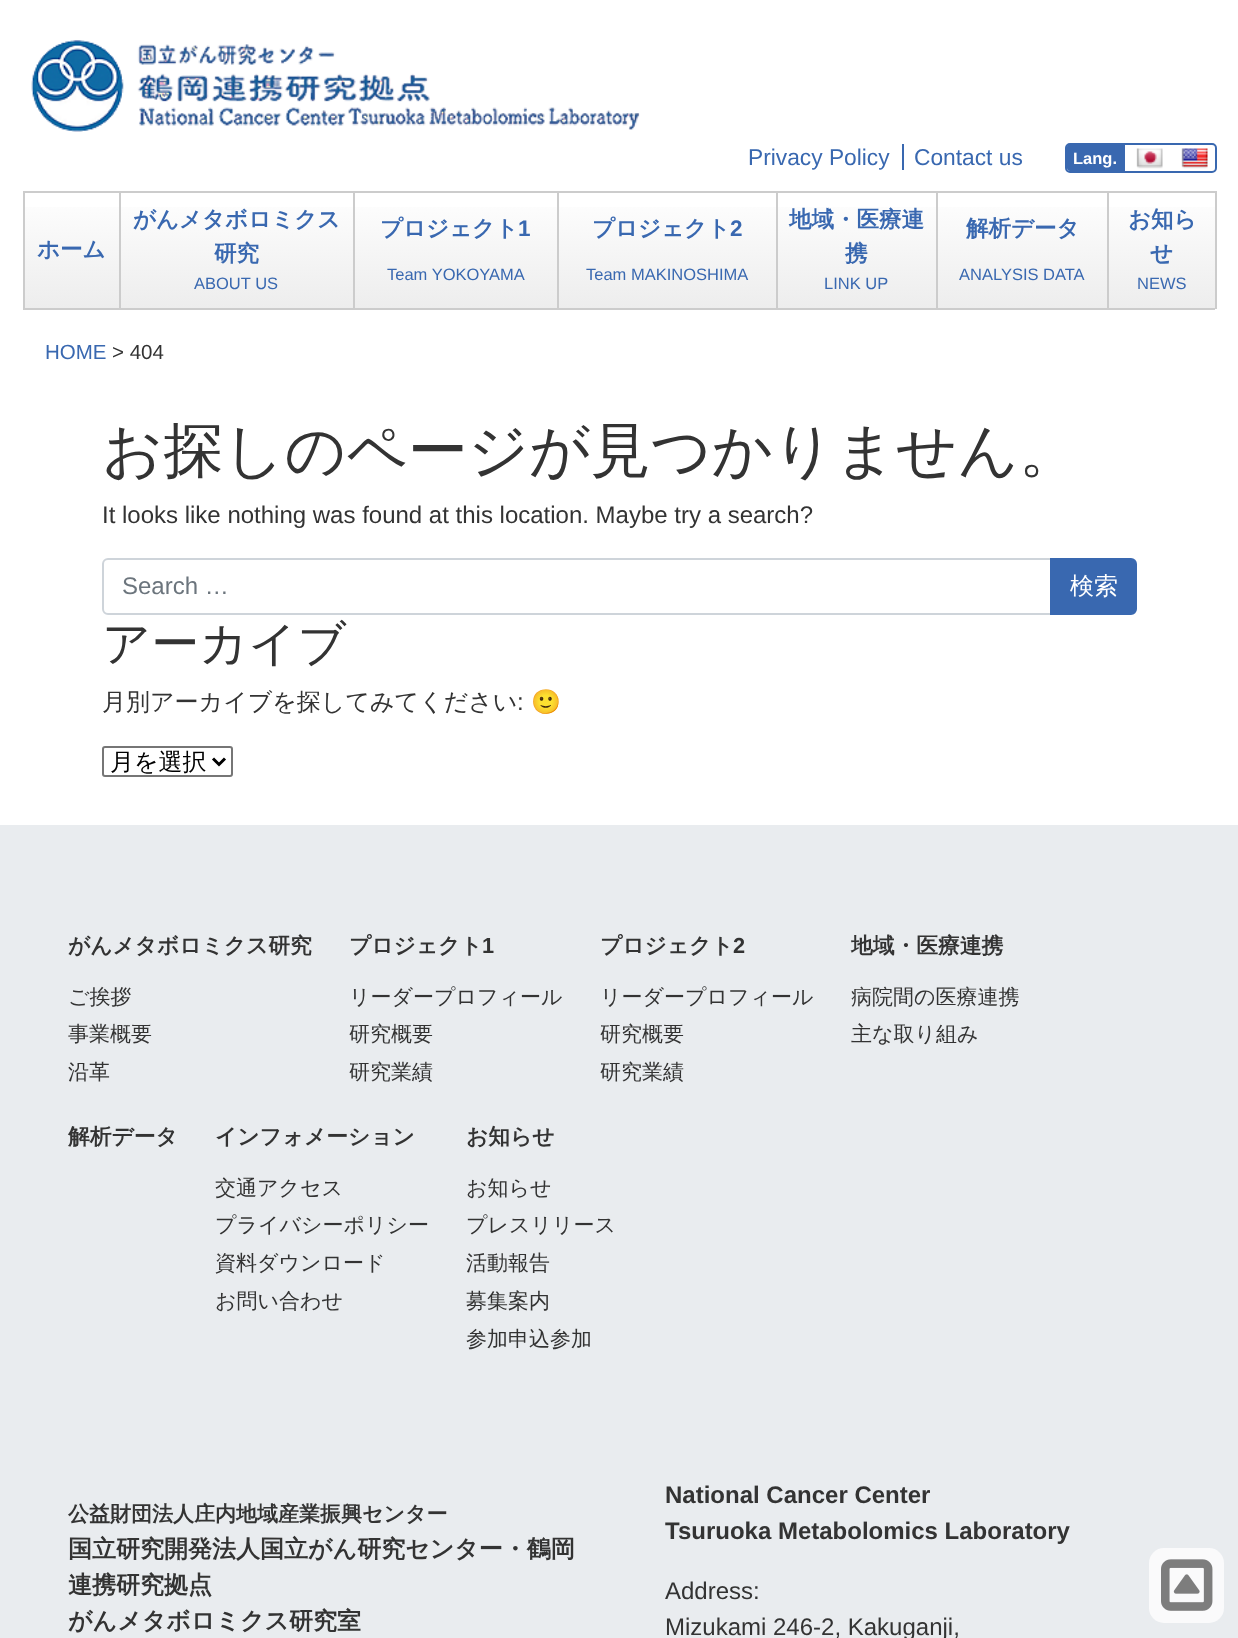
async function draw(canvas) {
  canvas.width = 1238;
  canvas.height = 1638;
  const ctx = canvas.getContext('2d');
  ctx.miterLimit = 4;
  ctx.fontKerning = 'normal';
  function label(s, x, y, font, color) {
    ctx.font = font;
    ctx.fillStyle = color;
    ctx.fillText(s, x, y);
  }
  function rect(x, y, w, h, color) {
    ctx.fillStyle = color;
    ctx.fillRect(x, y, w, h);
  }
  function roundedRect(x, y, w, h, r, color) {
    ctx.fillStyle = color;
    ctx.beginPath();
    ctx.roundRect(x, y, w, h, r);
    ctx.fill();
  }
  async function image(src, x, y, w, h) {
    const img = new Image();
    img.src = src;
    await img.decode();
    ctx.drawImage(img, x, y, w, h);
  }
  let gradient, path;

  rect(0, 0, 1238, 1638, '#fff');
  await image('assets/img1.png', 31, 40, 609, 92);
  label('Privacy Policy', 748, 165, '22.75px Liberation Sans', '#3968b0');
  rect(902, 144, 2, 26, '#3968b0');
  label('Contact us', 914, 165, '22.75px Liberation Sans', '#3968b0');
  ctx.beginPath();
  ctx.roundRect(1066, 144, 150, 28, 4);
  ctx.strokeStyle = '#3968b0';
  ctx.lineWidth = 2;
  ctx.stroke();
  ctx.beginPath();
  ctx.roundRect(1067, 144, 58, 27, [3, 0, 0, 3]);
  ctx.fill();
  label('Lang.', 1073, 164, 'bold 16.5px Liberation Sans', '#fff');
  await image('assets/img2.png', 1136, 148, 27, 21);
  await image('assets/img3.png', 1181, 148, 27, 21);
  gradient = ctx.createLinearGradient(619, 190, 619, 309);
  gradient.addColorStop(0, '#fff');
  gradient.addColorStop(1, '#ededed');
  ctx.fillStyle = gradient;
  ctx.fillRect(25, 207, 1190, 101);
  rect(1215, 191, 2, 118, '#ccc');
  rect(23, 191, 1192, 2, '#ccc');
  rect(23, 308, 1192, 2, '#ccc');
  rect(23, 191, 2, 118, '#ccc');
  label('ホーム', 37, 257, 'bold 22.5px WenQuanYi Zen Hei', '#3968b0');
  rect(119, 191, 2, 118, '#ccc');
  label('がんメタボロミクス', 133, 227, 'bold 22.5px WenQuanYi Zen Hei', '#3968b0');
  label('研究', 214, 261, 'bold 22.5px WenQuanYi Zen Hei', '#3968b0');
  label('ABOUT US', 194, 289, '16.5px Liberation Sans', '#3968b0');
  rect(353, 191, 2, 118, '#ccc');
  label('プロジェクト', 380, 236, 'bold 22.5px WenQuanYi Zen Hei', '#3968b0');
  label('1', 518, 236, 'bold 22.5px Liberation Sans', '#3968b0');
  label('Team YOKOYAMA', 387, 280, '16.5px Liberation Sans', '#3968b0');
  rect(557, 191, 2, 118, '#ccc');
  label('プロジェクト', 592, 236, 'bold 22.5px WenQuanYi Zen Hei', '#3968b0');
  label('2', 730, 236, 'bold 22.5px Liberation Sans', '#3968b0');
  label('Team MAKINOSHIMA', 586, 280, '16.5px Liberation Sans', '#3968b0');
  rect(776, 191, 2, 118, '#ccc');
  label('地域・医療連', 789, 227, 'bold 22.5px WenQuanYi Zen Hei', '#3968b0');
  label('携', 845, 261, 'bold 22.5px WenQuanYi Zen Hei', '#3968b0');
  label('LINK UP', 824, 289, '16.5px Liberation Sans', '#3968b0');
  rect(936, 191, 2, 118, '#ccc');
  label('解析データ', 966, 236, 'bold 22.5px WenQuanYi Zen Hei', '#3968b0');
  label('ANALYSIS DATA', 959, 280, '16.5px Liberation Sans', '#3968b0');
  rect(1107, 191, 2, 118, '#ccc');
  label('お知ら', 1128, 227, 'bold 22.5px WenQuanYi Zen Hei', '#3968b0');
  label('せ', 1150, 261, 'bold 22.5px WenQuanYi Zen Hei', '#3968b0');
  label('NEWS', 1137, 289, '16.5px Liberation Sans', '#3968b0');
  label('HOME', 45, 359, '20.5px Liberation Sans', '#3968b0');
  label('> 404', 112, 359, '20.5px Liberation Sans', '#333');
  label('お探しのページが見つかりません。', 102, 471, '500 60px WenQuanYi Zen Hei', '#333');
  label('It looks like nothing was found at this location. Maybe try a search?', 102, 523, '24px Liberation Sans', '#333');
  ctx.beginPath();
  ctx.roundRect(103, 559, 948, 55, [5, 0, 0, 5]);
  ctx.strokeStyle = '#ced4da';
  ctx.stroke();
  label('Search …', 122, 594, '24px Liberation Sans', '#6c757d');
  ctx.fillStyle = '#3968b0';
  ctx.beginPath();
  ctx.roundRect(1051, 559, 85, 55, [0, 5, 5, 0]);
  ctx.fill();
  ctx.strokeStyle = '#3968b0';
  ctx.stroke();
  label('検索', 1070, 594, '500 24px WenQuanYi Zen Hei', '#fff');
  label('アーカイブ', 102, 660, '500 48px WenQuanYi Zen Hei', '#333');
  label('月別アーカイブを探してみてください', 102, 710, '500 24px WenQuanYi Zen Hei', '#333');
  label(':', 517, 710, '24px Liberation Sans', '#333');
  label('🙂', 531, 710, '24px Noto Color Emoji', '#333');
  ctx.beginPath();
  ctx.roundRect(103, 747, 129, 29, 2);
  ctx.strokeStyle = '#767676';
  ctx.stroke();
  path = new Path2D('M213 758.5L219 764.5L225 758.5');
  ctx.strokeStyle = '#000';
  ctx.lineWidth = 3;
  ctx.stroke(path);
  label('月を選択', 110, 770, '500 24px WenQuanYi Zen Hei', '#000');
  rect(0, 825, 1238, 813, '#e9ecef');
  label('がんメタボロミクス研究', 68, 953, 'bold 21.75px WenQuanYi Zen Hei', '#333');
  label('ご挨拶', 68, 1004, '500 21px WenQuanYi Zen Hei', '#333');
  label('事業概要', 68, 1041, '500 21px WenQuanYi Zen Hei', '#333');
  label('沿革', 68, 1079, '500 21px WenQuanYi Zen Hei', '#333');
  label('プロジェクト', 349, 953, 'bold 21.75px WenQuanYi Zen Hei', '#333');
  label('1', 482, 953, 'bold 21.75px Liberation Sans', '#333');
  label('リーダープロフィール', 349, 1004, '500 21px WenQuanYi Zen Hei', '#333');
  label('研究概要', 349, 1041, '500 21px WenQuanYi Zen Hei', '#333');
  label('研究業績', 349, 1079, '500 21px WenQuanYi Zen Hei', '#333');
  label('プロジェクト', 600, 953, 'bold 21.75px WenQuanYi Zen Hei', '#333');
  label('2', 733, 953, 'bold 21.75px Liberation Sans', '#333');
  label('リーダープロフィール', 600, 1004, '500 21px WenQuanYi Zen Hei', '#333');
  label('研究概要', 600, 1041, '500 21px WenQuanYi Zen Hei', '#333');
  label('研究業績', 600, 1079, '500 21px WenQuanYi Zen Hei', '#333');
  label('地域・医療連携', 851, 953, 'bold 21.75px WenQuanYi Zen Hei', '#333');
  label('病院間の医療連携', 851, 1004, '500 21px WenQuanYi Zen Hei', '#333');
  label('主な取り組み', 851, 1041, '500 21px WenQuanYi Zen Hei', '#333');
  label('解析データ', 68, 1144, 'bold 21.75px WenQuanYi Zen Hei', '#333');
  label('インフォメーション', 215, 1144, 'bold 21.75px WenQuanYi Zen Hei', '#333');
  label('交通アクセス', 215, 1195, '500 21px WenQuanYi Zen Hei', '#333');
  label('プライバシーポリシー', 215, 1232, '500 21px WenQuanYi Zen Hei', '#333');
  label('資料ダウンロード', 215, 1270, '500 21px WenQuanYi Zen Hei', '#333');
  label('お問い合わせ', 215, 1308, '500 21px WenQuanYi Zen Hei', '#333');
  label('お知らせ', 466, 1144, 'bold 21.75px WenQuanYi Zen Hei', '#333');
  label('お知らせ', 466, 1195, '500 21px WenQuanYi Zen Hei', '#333');
  label('プレスリリース', 466, 1232, '500 21px WenQuanYi Zen Hei', '#333');
  label('活動報告', 466, 1270, '500 21px WenQuanYi Zen Hei', '#333');
  label('募集案内', 466, 1308, '500 21px WenQuanYi Zen Hei', '#333');
  label('参加申込参加', 466, 1346, '500 21px WenQuanYi Zen Hei', '#333');
  label('公益財団法人庄内地域産業振興センター', 68, 1521, 'bold 21px WenQuanYi Zen Hei', '#333');
  label('国立研究開発法人国立がん研究センター・鶴岡', 68, 1557, 'bold 24px WenQuanYi Zen Hei', '#333');
  label('連携研究拠点', 68, 1593, 'bold 24px WenQuanYi Zen Hei', '#333');
  label('がんメタボロミクス研究室', 68, 1629, 'bold 24px WenQuanYi Zen Hei', '#333');
  label('National Cancer Center', 665, 1503, 'bold 24px Liberation Sans', '#333');
  label('Tsuruoka Metabolomics Laboratory', 665, 1539, 'bold 24px Liberation Sans', '#333');
  label('Address:', 665, 1599, '24px Liberation Sans', '#333');
  label('Mizukami 246-2, Kakuganji,', 665, 1635, '24px Liberation Sans', '#333');
  roundedRect(1149, 1548, 75, 75, 15, '#fafafb');
  await image('assets/img4.png', 1161, 1559, 52, 52);
}

draw(document.querySelector('canvas'));
